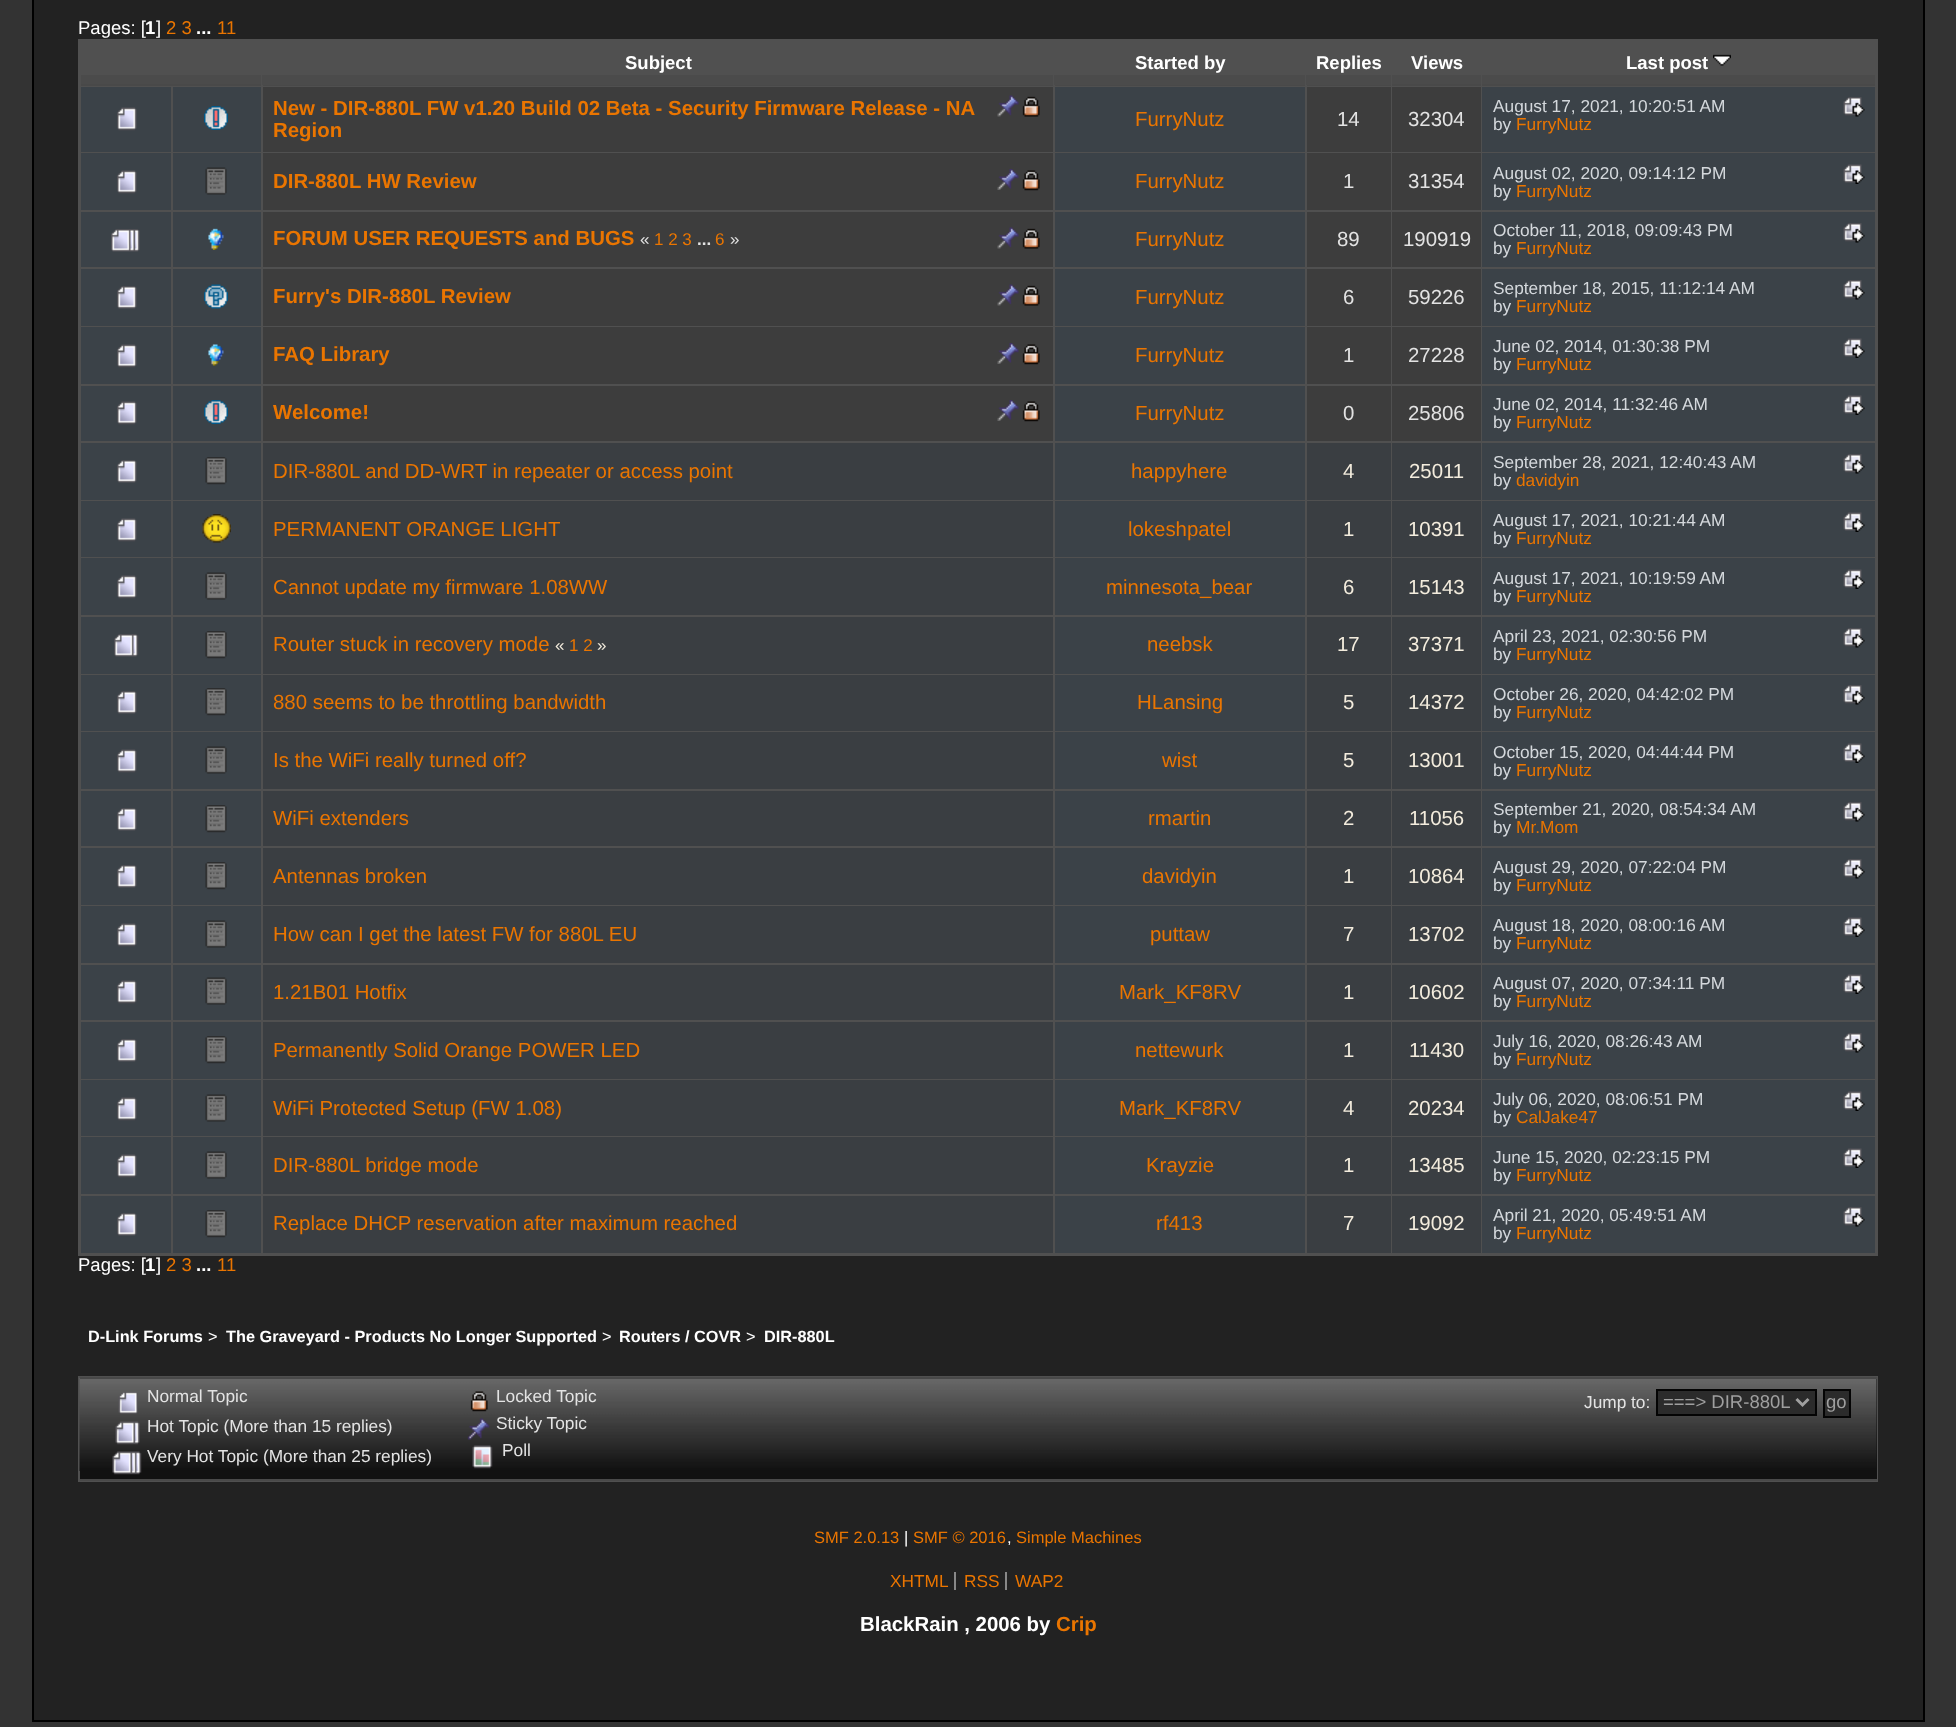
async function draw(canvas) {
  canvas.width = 1956;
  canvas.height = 1727;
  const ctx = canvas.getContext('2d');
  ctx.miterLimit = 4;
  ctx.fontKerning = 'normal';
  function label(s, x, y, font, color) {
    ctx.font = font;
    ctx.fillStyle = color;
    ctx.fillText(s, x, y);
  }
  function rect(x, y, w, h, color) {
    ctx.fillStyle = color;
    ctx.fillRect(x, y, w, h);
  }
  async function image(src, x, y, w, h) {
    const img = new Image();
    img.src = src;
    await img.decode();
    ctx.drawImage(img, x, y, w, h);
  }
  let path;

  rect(0, 0, 1956, 1727, '#333');
  ctx.fillStyle = '#222';
  ctx.beginPath();
  ctx.rect(33, -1, 1891, 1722);
  ctx.fill();
  ctx.strokeStyle = '#000';
  ctx.lineWidth = 2;
  ctx.stroke();
  label('Pages: [', 78, 34, '18.5px Liberation Sans', '#fff');
  label('1', 145, 34, 'bold 18.5px Liberation Sans', '#fff');
  label(']', 156, 34, '18.5px Liberation Sans', '#fff');
  label('2 3', 166, 34, '18.5px Liberation Sans', '#ea7500');
  label('...', 196, 34, 'bold 18.5px Liberation Sans', '#fff');
  label('11', 217, 34, '18.5px Liberation Sans', '#ea7500');
  ctx.strokeStyle = '#505050';
  ctx.strokeRect(79, 40, 1798, 1215);
  rect(80, 41, 1796, 1213, '#505050');
  rect(262, 75, 791, 10, '#4b4b4b');
  rect(263, 85, 790, 1, '#494949');
  label('Subject', 625, 69, 'bold 18.5px Liberation Sans', '#fff');
  rect(1054, 75, 251, 10, '#4b4b4b');
  rect(1055, 85, 250, 1, '#494949');
  label('Started by', 1135, 69, 'bold 18.5px Liberation Sans', '#fff');
  rect(1306, 75, 85, 10, '#4b4b4b');
  rect(1307, 85, 84, 1, '#494949');
  label('Replies', 1316, 69, 'bold 18.5px Liberation Sans', '#fff');
  rect(1392, 75, 89, 9, '#4b4b4b');
  rect(1392, 84, 89, 2, '#494949');
  label('Views', 1411, 69, 'bold 18.5px Liberation Sans', '#fff');
  rect(1482, 75, 393, 9, '#4b4b4b');
  rect(1482, 84, 393, 2, '#494949');
  label('Last post', 1626, 69, 'bold 18.5px Liberation Sans', '#fff');
  await image('assets/img1.png', 1713, 54, 18, 12);
  rect(81, 75, 180, 9, '#4b4b4b');
  rect(81, 84, 180, 2, '#494949');
  rect(81, 87, 90, 65, '#3b4248');
  await image('assets/img2.png', 117, 107, 20, 24);
  rect(173, 87, 88, 65, '#3b4248');
  await image('assets/img3.png', 204, 106, 24, 24);
  rect(263, 87, 790, 65, '#3d3d3d');
  label('New - DIR-880L FW v1.20 Build 02 Beta - Security Firmware Release - NA', 273, 115, 'bold 20.4px Liberation Sans', '#ea7500');
  await image('assets/img4.png', 997, 95, 22, 22);
  await image('assets/img5.png', 1022, 96, 18, 21);
  label('Region', 273, 137, 'bold 20.4px Liberation Sans', '#ea7500');
  rect(1055, 87, 250, 65, '#3b4248');
  label('FurryNutz', 1135, 126, '20.4px Liberation Sans', '#ea7500');
  rect(1307, 87, 84, 65, '#3d3d3d');
  label('14', 1337, 126, '20.4px Liberation Sans', '#e3e3e3');
  rect(1392, 87, 89, 65, '#3d3d3d');
  label('32304', 1408, 126, '20.4px Liberation Sans', '#e3e3e3');
  rect(1482, 87, 393, 65, '#3b4248');
  label('August 17, 2021, 10:20:51 AM', 1493, 112, '17.3px Liberation Sans', '#d4d8dc');
  await image('assets/img6.png', 1843, 97, 22, 20);
  label('by', 1493, 130, '17.3px Liberation Sans', '#d4d8dc');
  label('FurryNutz', 1516, 130, '17.3px Liberation Sans', '#ea7500');
  rect(81, 153, 90, 57, '#3b4248');
  await image('assets/img2.png', 117, 170, 20, 24);
  rect(173, 153, 88, 57, '#3b4248');
  await image('assets/img7.png', 205, 167, 22, 28);
  rect(263, 153, 790, 57, '#3d3d3d');
  label('DIR-880L HW Review', 273, 188, 'bold 20.4px Liberation Sans', '#ea7500');
  await image('assets/img8.png', 997, 169, 22, 21);
  await image('assets/img9.png', 1022, 170, 18, 21);
  rect(1055, 153, 250, 57, '#3b4248');
  label('FurryNutz', 1135, 188, '20.4px Liberation Sans', '#ea7500');
  rect(1307, 153, 84, 57, '#3d3d3d');
  label('1', 1343, 188, '20.4px Liberation Sans', '#e3e3e3');
  rect(1392, 153, 89, 57, '#3d3d3d');
  label('31354', 1408, 188, '20.4px Liberation Sans', '#e3e3e3');
  rect(1482, 153, 393, 57, '#3b4248');
  label('August 02, 2020, 09:14:12 PM', 1493, 179, '17.3px Liberation Sans', '#d4d8dc');
  await image('assets/img10.png', 1843, 164, 22, 20);
  label('by', 1493, 197, '17.3px Liberation Sans', '#d4d8dc');
  label('FurryNutz', 1516, 197, '17.3px Liberation Sans', '#ea7500');
  rect(81, 212, 90, 55, '#3b4248');
  await image('assets/img11.png', 111, 229, 29, 23);
  rect(173, 212, 88, 55, '#3b4248');
  await image('assets/img12.png', 208, 228, 16, 22);
  rect(263, 212, 790, 55, '#3d3d3d');
  label('FORUM USER REQUESTS and BUGS', 273, 245, 'bold 20.4px Liberation Sans', '#ea7500');
  label('«', 640, 245, '17px Liberation Sans', '#e3e3e3');
  label('1 2 3', 654, 245, '17px Liberation Sans', '#ea7500');
  label('...', 697, 245, 'bold 17px Liberation Sans', '#e3e3e3');
  label('6', 715, 245, '17px Liberation Sans', '#ea7500');
  label('»', 730, 245, '17px Liberation Sans', '#e3e3e3');
  await image('assets/img4.png', 997, 227, 22, 22);
  await image('assets/img5.png', 1022, 228, 18, 21);
  rect(1055, 212, 250, 55, '#3b4248');
  label('FurryNutz', 1135, 246, '20.4px Liberation Sans', '#ea7500');
  rect(1307, 212, 84, 55, '#3d3d3d');
  label('89', 1337, 246, '20.4px Liberation Sans', '#e3e3e3');
  rect(1392, 212, 89, 55, '#3d3d3d');
  label('190919', 1403, 246, '20.4px Liberation Sans', '#e3e3e3');
  rect(1482, 212, 393, 55, '#3b4248');
  label('October 11, 2018, 09:09:43 PM', 1493, 236, '17.3px Liberation Sans', '#d4d8dc');
  await image('assets/img6.png', 1843, 223, 22, 20);
  label('by', 1493, 254, '17.3px Liberation Sans', '#d4d8dc');
  label('FurryNutz', 1516, 254, '17.3px Liberation Sans', '#ea7500');
  rect(81, 269, 90, 57, '#3b4248');
  await image('assets/img13.png', 117, 286, 20, 23);
  rect(173, 269, 88, 57, '#3b4248');
  await image('assets/img14.png', 204, 284, 24, 25);
  rect(263, 269, 790, 57, '#3d3d3d');
  label('Furry\'s DIR-880L Review', 273, 303, 'bold 20.4px Liberation Sans', '#ea7500');
  await image('assets/img4.png', 997, 284, 22, 22);
  await image('assets/img5.png', 1022, 285, 18, 21);
  rect(1055, 269, 250, 57, '#3b4248');
  label('FurryNutz', 1135, 304, '20.4px Liberation Sans', '#ea7500');
  rect(1307, 269, 84, 57, '#3d3d3d');
  label('6', 1343, 304, '20.4px Liberation Sans', '#e3e3e3');
  rect(1392, 269, 89, 57, '#3d3d3d');
  label('59226', 1408, 304, '20.4px Liberation Sans', '#e3e3e3');
  rect(1482, 269, 393, 57, '#3b4248');
  label('September 18, 2015, 11:12:14 AM', 1493, 294, '17.3px Liberation Sans', '#d4d8dc');
  await image('assets/img6.png', 1843, 280, 22, 20);
  label('by', 1493, 312, '17.3px Liberation Sans', '#d4d8dc');
  label('FurryNutz', 1516, 312, '17.3px Liberation Sans', '#ea7500');
  rect(81, 327, 90, 57, '#3b4248');
  await image('assets/img2.png', 117, 344, 20, 24);
  rect(173, 327, 88, 57, '#3b4248');
  await image('assets/img15.png', 208, 344, 16, 22);
  rect(263, 327, 790, 57, '#3d3d3d');
  label('FAQ Library', 273, 361, 'bold 20.4px Liberation Sans', '#ea7500');
  await image('assets/img8.png', 997, 343, 22, 21);
  await image('assets/img9.png', 1022, 344, 18, 21);
  rect(1055, 327, 250, 57, '#3b4248');
  label('FurryNutz', 1135, 362, '20.4px Liberation Sans', '#ea7500');
  rect(1307, 327, 84, 57, '#3d3d3d');
  label('1', 1343, 362, '20.4px Liberation Sans', '#e3e3e3');
  rect(1392, 327, 89, 57, '#3d3d3d');
  label('27228', 1408, 362, '20.4px Liberation Sans', '#e3e3e3');
  rect(1482, 327, 393, 57, '#3b4248');
  label('June 02, 2014, 01:30:38 PM', 1493, 352, '17.3px Liberation Sans', '#d4d8dc');
  await image('assets/img10.png', 1843, 338, 22, 20);
  label('by', 1493, 370, '17.3px Liberation Sans', '#d4d8dc');
  label('FurryNutz', 1516, 370, '17.3px Liberation Sans', '#ea7500');
  rect(81, 386, 90, 55, '#3b4248');
  await image('assets/img2.png', 117, 401, 20, 24);
  rect(173, 386, 88, 55, '#3b4248');
  await image('assets/img3.png', 204, 400, 24, 24);
  rect(263, 386, 790, 55, '#3d3d3d');
  label('Welcome!', 273, 419, 'bold 20.4px Liberation Sans', '#ea7500');
  await image('assets/img8.png', 997, 400, 22, 21);
  await image('assets/img9.png', 1022, 401, 18, 21);
  rect(1055, 386, 250, 55, '#3b4248');
  label('FurryNutz', 1135, 420, '20.4px Liberation Sans', '#ea7500');
  rect(1307, 386, 84, 55, '#3d3d3d');
  label('0', 1343, 420, '20.4px Liberation Sans', '#e3e3e3');
  rect(1392, 386, 89, 55, '#3d3d3d');
  label('25806', 1408, 420, '20.4px Liberation Sans', '#e3e3e3');
  rect(1482, 386, 393, 55, '#3b4248');
  label('June 02, 2014, 11:32:46 AM', 1493, 410, '17.3px Liberation Sans', '#d4d8dc');
  await image('assets/img10.png', 1843, 395, 22, 20);
  label('by', 1493, 428, '17.3px Liberation Sans', '#d4d8dc');
  label('FurryNutz', 1516, 428, '17.3px Liberation Sans', '#ea7500');
  rect(81, 443, 90, 57, '#3b4248');
  await image('assets/img13.png', 117, 460, 20, 23);
  rect(173, 443, 88, 57, '#3b4248');
  await image('assets/img16.png', 205, 457, 22, 28);
  rect(263, 443, 790, 57, '#3a3e42');
  label('DIR-880L and DD-WRT in repeater or access point', 273, 478, '20.4px Liberation Sans', '#ea7500');
  rect(1055, 443, 250, 57, '#3b4248');
  label('happyhere', 1131, 478, '20.4px Liberation Sans', '#ea7500');
  rect(1307, 443, 84, 57, '#3a3e42');
  label('4', 1343, 478, '20.4px Liberation Sans', '#f3ecdd');
  rect(1392, 443, 89, 57, '#3a3e42');
  label('25011', 1409, 478, '20.4px Liberation Sans', '#f3ecdd');
  rect(1482, 443, 393, 57, '#3b4248');
  label('September 28, 2021, 12:40:43 AM', 1493, 468, '17.3px Liberation Sans', '#d4d8dc');
  await image('assets/img6.png', 1843, 454, 22, 20);
  label('by', 1493, 486, '17.3px Liberation Sans', '#d4d8dc');
  label('davidyin', 1516, 486, '17.3px Liberation Sans', '#ea7500');
  rect(81, 501, 90, 56, '#3b4248');
  await image('assets/img2.png', 117, 518, 20, 24);
  rect(173, 501, 88, 56, '#3b4248');
  await image('assets/img17.png', 202, 514, 29, 29);
  rect(263, 501, 790, 56, '#3a3e42');
  label('PERMANENT ORANGE LIGHT', 273, 536, '20.4px Liberation Sans', '#ea7500');
  rect(1055, 501, 250, 56, '#3b4248');
  label('lokeshpatel', 1128, 536, '20.4px Liberation Sans', '#ea7500');
  rect(1307, 501, 84, 56, '#3a3e42');
  label('1', 1343, 536, '20.4px Liberation Sans', '#f3ecdd');
  rect(1392, 501, 89, 56, '#3a3e42');
  label('10391', 1408, 536, '20.4px Liberation Sans', '#f3ecdd');
  rect(1482, 501, 393, 56, '#3b4248');
  label('August 17, 2021, 10:21:44 AM', 1493, 526, '17.3px Liberation Sans', '#d4d8dc');
  await image('assets/img10.png', 1843, 512, 22, 20);
  label('by', 1493, 544, '17.3px Liberation Sans', '#d4d8dc');
  label('FurryNutz', 1516, 544, '17.3px Liberation Sans', '#ea7500');
  rect(81, 558, 90, 57, '#3b4248');
  await image('assets/img2.png', 117, 575, 20, 24);
  rect(173, 558, 88, 57, '#3b4248');
  await image('assets/img7.png', 205, 572, 22, 28);
  rect(263, 558, 790, 57, '#3a3e42');
  label('Cannot update my firmware 1.08WW', 273, 594, '20.4px Liberation Sans', '#ea7500');
  rect(1055, 558, 250, 57, '#3b4248');
  label('minnesota_bear', 1106, 594, '20.4px Liberation Sans', '#ea7500');
  rect(1307, 558, 84, 57, '#3a3e42');
  label('6', 1343, 594, '20.4px Liberation Sans', '#f3ecdd');
  rect(1392, 558, 89, 57, '#3a3e42');
  label('15143', 1408, 594, '20.4px Liberation Sans', '#f3ecdd');
  rect(1482, 558, 393, 57, '#3b4248');
  label('August 17, 2021, 10:19:59 AM', 1493, 584, '17.3px Liberation Sans', '#d4d8dc');
  await image('assets/img10.png', 1843, 569, 22, 20);
  label('by', 1493, 602, '17.3px Liberation Sans', '#d4d8dc');
  label('FurryNutz', 1516, 602, '17.3px Liberation Sans', '#ea7500');
  rect(81, 617, 90, 57, '#3b4248');
  await image('assets/img18.png', 114, 634, 25, 23);
  rect(173, 617, 88, 57, '#3b4248');
  await image('assets/img16.png', 205, 631, 22, 28);
  rect(263, 617, 790, 57, '#3a3e42');
  label('Router stuck in recovery mode', 273, 651, '20.4px Liberation Sans', '#ea7500');
  label('«', 555, 651, '17px Liberation Sans', '#f3ecdd');
  label('1 2', 569, 651, '17px Liberation Sans', '#ea7500');
  label('»', 597, 651, '17px Liberation Sans', '#f3ecdd');
  rect(1055, 617, 250, 57, '#3b4248');
  label('neebsk', 1147, 651, '20.4px Liberation Sans', '#ea7500');
  rect(1307, 617, 84, 57, '#3a3e42');
  label('17', 1337, 651, '20.4px Liberation Sans', '#f3ecdd');
  rect(1392, 617, 89, 57, '#3a3e42');
  label('37371', 1408, 651, '20.4px Liberation Sans', '#f3ecdd');
  rect(1482, 617, 393, 57, '#3b4248');
  label('April 23, 2021, 02:30:56 PM', 1493, 642, '17.3px Liberation Sans', '#d4d8dc');
  await image('assets/img6.png', 1843, 628, 22, 20);
  label('by', 1493, 660, '17.3px Liberation Sans', '#d4d8dc');
  label('FurryNutz', 1516, 660, '17.3px Liberation Sans', '#ea7500');
  rect(81, 675, 90, 56, '#3b4248');
  await image('assets/img13.png', 117, 691, 20, 23);
  rect(173, 675, 88, 56, '#3b4248');
  await image('assets/img16.png', 205, 688, 22, 28);
  rect(263, 675, 790, 56, '#3a3e42');
  label('880 seems to be throttling bandwidth', 273, 709, '20.4px Liberation Sans', '#ea7500');
  rect(1055, 675, 250, 56, '#3b4248');
  label('HLansing', 1137, 709, '20.4px Liberation Sans', '#ea7500');
  rect(1307, 675, 84, 56, '#3a3e42');
  label('5', 1343, 709, '20.4px Liberation Sans', '#f3ecdd');
  rect(1392, 675, 89, 56, '#3a3e42');
  label('14372', 1408, 709, '20.4px Liberation Sans', '#f3ecdd');
  rect(1482, 675, 393, 56, '#3b4248');
  label('October 26, 2020, 04:42:02 PM', 1493, 700, '17.3px Liberation Sans', '#d4d8dc');
  await image('assets/img6.png', 1843, 685, 22, 20);
  label('by', 1493, 718, '17.3px Liberation Sans', '#d4d8dc');
  label('FurryNutz', 1516, 718, '17.3px Liberation Sans', '#ea7500');
  rect(81, 732, 90, 57, '#3b4248');
  await image('assets/img2.png', 117, 749, 20, 24);
  rect(173, 732, 88, 57, '#3b4248');
  await image('assets/img7.png', 205, 746, 22, 28);
  rect(263, 732, 790, 57, '#3a3e42');
  label('Is the WiFi really turned off?', 273, 767, '20.4px Liberation Sans', '#ea7500');
  rect(1055, 732, 250, 57, '#3b4248');
  label('wist', 1162, 767, '20.4px Liberation Sans', '#ea7500');
  rect(1307, 732, 84, 57, '#3a3e42');
  label('5', 1343, 767, '20.4px Liberation Sans', '#f3ecdd');
  rect(1392, 732, 89, 57, '#3a3e42');
  label('13001', 1408, 767, '20.4px Liberation Sans', '#f3ecdd');
  rect(1482, 732, 393, 57, '#3b4248');
  label('October 15, 2020, 04:44:44 PM', 1493, 758, '17.3px Liberation Sans', '#d4d8dc');
  await image('assets/img10.png', 1843, 743, 22, 20);
  label('by', 1493, 776, '17.3px Liberation Sans', '#d4d8dc');
  label('FurryNutz', 1516, 776, '17.3px Liberation Sans', '#ea7500');
  rect(81, 791, 90, 55, '#3b4248');
  await image('assets/img13.png', 117, 808, 20, 23);
  rect(173, 791, 88, 55, '#3b4248');
  await image('assets/img16.png', 205, 805, 22, 28);
  rect(263, 791, 790, 55, '#3a3e42');
  label('WiFi extenders', 273, 825, '20.4px Liberation Sans', '#ea7500');
  rect(1055, 791, 250, 55, '#3b4248');
  label('rmartin', 1148, 825, '20.4px Liberation Sans', '#ea7500');
  rect(1307, 791, 84, 55, '#3a3e42');
  label('2', 1343, 825, '20.4px Liberation Sans', '#f3ecdd');
  rect(1392, 791, 89, 55, '#3a3e42');
  label('11056', 1409, 825, '20.4px Liberation Sans', '#f3ecdd');
  rect(1482, 791, 393, 55, '#3b4248');
  label('September 21, 2020, 08:54:34 AM', 1493, 815, '17.3px Liberation Sans', '#d4d8dc');
  await image('assets/img6.png', 1843, 802, 22, 20);
  label('by', 1493, 833, '17.3px Liberation Sans', '#d4d8dc');
  label('Mr.Mom', 1516, 833, '17.3px Liberation Sans', '#ea7500');
  rect(81, 848, 90, 57, '#3b4248');
  await image('assets/img13.png', 117, 865, 20, 23);
  rect(173, 848, 88, 57, '#3b4248');
  await image('assets/img16.png', 205, 862, 22, 28);
  rect(263, 848, 790, 57, '#3a3e42');
  label('Antennas broken', 273, 883, '20.4px Liberation Sans', '#ea7500');
  rect(1055, 848, 250, 57, '#3b4248');
  label('davidyin', 1142, 883, '20.4px Liberation Sans', '#ea7500');
  rect(1307, 848, 84, 57, '#3a3e42');
  label('1', 1343, 883, '20.4px Liberation Sans', '#f3ecdd');
  rect(1392, 848, 89, 57, '#3a3e42');
  label('10864', 1408, 883, '20.4px Liberation Sans', '#f3ecdd');
  rect(1482, 848, 393, 57, '#3b4248');
  label('August 29, 2020, 07:22:04 PM', 1493, 873, '17.3px Liberation Sans', '#d4d8dc');
  await image('assets/img6.png', 1843, 859, 22, 20);
  label('by', 1493, 891, '17.3px Liberation Sans', '#d4d8dc');
  label('FurryNutz', 1516, 891, '17.3px Liberation Sans', '#ea7500');
  rect(81, 906, 90, 57, '#3b4248');
  await image('assets/img2.png', 117, 923, 20, 24);
  rect(173, 906, 88, 57, '#3b4248');
  await image('assets/img7.png', 205, 920, 22, 28);
  rect(263, 906, 790, 57, '#3a3e42');
  label('How can I get the latest FW for 880L EU', 273, 941, '20.4px Liberation Sans', '#ea7500');
  rect(1055, 906, 250, 57, '#3b4248');
  label('puttaw', 1150, 941, '20.4px Liberation Sans', '#ea7500');
  rect(1307, 906, 84, 57, '#3a3e42');
  label('7', 1343, 941, '20.4px Liberation Sans', '#f3ecdd');
  rect(1392, 906, 89, 57, '#3a3e42');
  label('13702', 1408, 941, '20.4px Liberation Sans', '#f3ecdd');
  rect(1482, 906, 393, 57, '#3b4248');
  label('August 18, 2020, 08:00:16 AM', 1493, 931, '17.3px Liberation Sans', '#d4d8dc');
  await image('assets/img10.png', 1843, 917, 22, 20);
  label('by', 1493, 949, '17.3px Liberation Sans', '#d4d8dc');
  label('FurryNutz', 1516, 949, '17.3px Liberation Sans', '#ea7500');
  rect(81, 965, 90, 55, '#3b4248');
  await image('assets/img2.png', 117, 980, 20, 24);
  rect(173, 965, 88, 55, '#3b4248');
  await image('assets/img7.png', 205, 977, 22, 28);
  rect(263, 965, 790, 55, '#3a3e42');
  label('1.21B01 Hotfix', 273, 999, '20.4px Liberation Sans', '#ea7500');
  rect(1055, 965, 250, 55, '#3b4248');
  label('Mark_KF8RV', 1119, 999, '20.4px Liberation Sans', '#ea7500');
  rect(1307, 965, 84, 55, '#3a3e42');
  label('1', 1343, 999, '20.4px Liberation Sans', '#f3ecdd');
  rect(1392, 965, 89, 55, '#3a3e42');
  label('10602', 1408, 999, '20.4px Liberation Sans', '#f3ecdd');
  rect(1482, 965, 393, 55, '#3b4248');
  label('August 07, 2020, 07:34:11 PM', 1493, 989, '17.3px Liberation Sans', '#d4d8dc');
  await image('assets/img10.png', 1843, 974, 22, 20);
  label('by', 1493, 1007, '17.3px Liberation Sans', '#d4d8dc');
  label('FurryNutz', 1516, 1007, '17.3px Liberation Sans', '#ea7500');
  rect(81, 1022, 90, 57, '#3b4248');
  await image('assets/img13.png', 117, 1039, 20, 23);
  rect(173, 1022, 88, 57, '#3b4248');
  await image('assets/img16.png', 205, 1036, 22, 28);
  rect(263, 1022, 790, 57, '#3a3e42');
  label('Permanently Solid Orange POWER LED', 273, 1057, '20.4px Liberation Sans', '#ea7500');
  rect(1055, 1022, 250, 57, '#3b4248');
  label('nettewurk', 1135, 1057, '20.4px Liberation Sans', '#ea7500');
  rect(1307, 1022, 84, 57, '#3a3e42');
  label('1', 1343, 1057, '20.4px Liberation Sans', '#f3ecdd');
  rect(1392, 1022, 89, 57, '#3a3e42');
  label('11430', 1409, 1057, '20.4px Liberation Sans', '#f3ecdd');
  rect(1482, 1022, 393, 57, '#3b4248');
  label('July 16, 2020, 08:26:43 AM', 1493, 1047, '17.3px Liberation Sans', '#d4d8dc');
  await image('assets/img6.png', 1843, 1033, 22, 20);
  label('by', 1493, 1065, '17.3px Liberation Sans', '#d4d8dc');
  label('FurryNutz', 1516, 1065, '17.3px Liberation Sans', '#ea7500');
  rect(81, 1080, 90, 56, '#3b4248');
  await image('assets/img2.png', 117, 1097, 20, 24);
  rect(173, 1080, 88, 56, '#3b4248');
  await image('assets/img7.png', 205, 1094, 22, 28);
  rect(263, 1080, 790, 56, '#3a3e42');
  label('WiFi Protected Setup (FW 1.08)', 273, 1115, '20.4px Liberation Sans', '#ea7500');
  rect(1055, 1080, 250, 56, '#3b4248');
  label('Mark_KF8RV', 1119, 1115, '20.4px Liberation Sans', '#ea7500');
  rect(1307, 1080, 84, 56, '#3a3e42');
  label('4', 1343, 1115, '20.4px Liberation Sans', '#f3ecdd');
  rect(1392, 1080, 89, 56, '#3a3e42');
  label('20234', 1408, 1115, '20.4px Liberation Sans', '#f3ecdd');
  rect(1482, 1080, 393, 56, '#3b4248');
  label('July 06, 2020, 08:06:51 PM', 1493, 1105, '17.3px Liberation Sans', '#d4d8dc');
  await image('assets/img10.png', 1843, 1091, 22, 20);
  label('by', 1493, 1123, '17.3px Liberation Sans', '#d4d8dc');
  label('CalJake47', 1516, 1123, '17.3px Liberation Sans', '#ea7500');
  rect(81, 1137, 90, 57, '#3b4248');
  await image('assets/img2.png', 117, 1154, 20, 24);
  rect(173, 1137, 88, 57, '#3b4248');
  await image('assets/img7.png', 205, 1151, 22, 28);
  rect(263, 1137, 790, 57, '#3a3e42');
  label('DIR-880L bridge mode', 273, 1172, '20.4px Liberation Sans', '#ea7500');
  rect(1055, 1137, 250, 57, '#3b4248');
  label('Krayzie', 1146, 1172, '20.4px Liberation Sans', '#ea7500');
  rect(1307, 1137, 84, 57, '#3a3e42');
  label('1', 1343, 1172, '20.4px Liberation Sans', '#f3ecdd');
  rect(1392, 1137, 89, 57, '#3a3e42');
  label('13485', 1408, 1172, '20.4px Liberation Sans', '#f3ecdd');
  rect(1482, 1137, 393, 57, '#3b4248');
  label('June 15, 2020, 02:23:15 PM', 1493, 1163, '17.3px Liberation Sans', '#d4d8dc');
  await image('assets/img10.png', 1843, 1148, 22, 20);
  label('by', 1493, 1181, '17.3px Liberation Sans', '#d4d8dc');
  label('FurryNutz', 1516, 1181, '17.3px Liberation Sans', '#ea7500');
  rect(81, 1196, 90, 57, '#3b4248');
  await image('assets/img13.png', 117, 1213, 20, 23);
  rect(173, 1196, 88, 57, '#3b4248');
  await image('assets/img16.png', 205, 1210, 22, 28);
  rect(263, 1196, 790, 57, '#3a3e42');
  label('Replace DHCP reservation after maximum reached', 273, 1230, '20.4px Liberation Sans', '#ea7500');
  rect(1055, 1196, 250, 57, '#3b4248');
  label('rf413', 1156, 1230, '20.4px Liberation Sans', '#ea7500');
  rect(1307, 1196, 84, 57, '#3a3e42');
  label('7', 1343, 1230, '20.4px Liberation Sans', '#f3ecdd');
  rect(1392, 1196, 89, 57, '#3a3e42');
  label('19092', 1408, 1230, '20.4px Liberation Sans', '#f3ecdd');
  rect(1482, 1196, 393, 57, '#3b4248');
  label('April 21, 2020, 05:49:51 AM', 1493, 1221, '17.3px Liberation Sans', '#d4d8dc');
  await image('assets/img6.png', 1843, 1207, 22, 20);
  label('by', 1493, 1239, '17.3px Liberation Sans', '#d4d8dc');
  label('FurryNutz', 1516, 1239, '17.3px Liberation Sans', '#ea7500');
  label('Pages: [', 78, 1271, '18.5px Liberation Sans', '#fff');
  label('1', 145, 1271, 'bold 18.5px Liberation Sans', '#fff');
  label(']', 156, 1271, '18.5px Liberation Sans', '#fff');
  label('2 3', 166, 1271, '18.5px Liberation Sans', '#ea7500');
  label('...', 196, 1271, 'bold 18.5px Liberation Sans', '#fff');
  label('11', 217, 1271, '18.5px Liberation Sans', '#ea7500');
  label('D-Link Forums', 88, 1342, 'bold 16.3px Liberation Sans', '#fff');
  label('>', 208, 1342, '16.3px Liberation Sans', '#fff');
  label('The Graveyard - Products No Longer Supported', 226, 1342, 'bold 16.3px Liberation Sans', '#fff');
  label('>', 602, 1342, '16.3px Liberation Sans', '#fff');
  label('Routers / COVR', 619, 1342, 'bold 16.3px Liberation Sans', '#fff');
  label('>', 746, 1342, '16.3px Liberation Sans', '#fff');
  label('DIR-880L', 764, 1342, 'bold 16.3px Liberation Sans', '#fff');
  ctx.strokeRect(79, 1377, 1798, 104);
  rect(80, 1379, 1797, 100, '#111');
  await image('assets/img19.png', 79, 1378, 1798, 93);
  rect(80, 1377, 1797, 2, '#494949');
  rect(80, 1479, 1797, 2, '#494949');
  await image('assets/img20.png', 118, 1392, 20, 22);
  label('Normal Topic', 147, 1402, '17.3px Liberation Sans', '#e3e3e3');
  await image('assets/img21.png', 115, 1421, 25, 24);
  label('Hot Topic (More than 15 replies)', 147, 1432, '17.3px Liberation Sans', '#e3e3e3');
  await image('assets/img22.png', 112, 1451, 30, 24);
  label('Very Hot Topic (More than 25 replies)', 147, 1462, '17.3px Liberation Sans', '#e3e3e3');
  await image('assets/img23.png', 470, 1391, 18, 21);
  label('Locked Topic', 496, 1402, '17.3px Liberation Sans', '#e3e3e3');
  await image('assets/img24.png', 467, 1418, 23, 22);
  label('Sticky Topic', 496, 1429, '17.3px Liberation Sans', '#e3e3e3');
  await image('assets/img25.png', 472, 1445, 21, 24);
  label('Poll', 502, 1456, '17.3px Liberation Sans', '#e3e3e3');
  label('Jump to:', 1584, 1408, '17.3px Liberation Sans', '#e3e3e3');
  ctx.fillStyle = '#2b2b2b';
  ctx.beginPath();
  ctx.rect(1657, 1390, 159, 25);
  ctx.fill();
  ctx.strokeStyle = '#040404';
  ctx.stroke();
  path = new Path2D('M1796.5 1399L1802.5 1405L1808.5 1399');
  ctx.strokeStyle = '#9f9f9f';
  ctx.lineWidth = 3;
  ctx.stroke(path);
  label('===> DIR-880L', 1663, 1408, '18.5px Liberation Sans', '#9f9f9f');
  ctx.fillStyle = '#2b2b2b';
  ctx.beginPath();
  ctx.rect(1824, 1390, 26, 27);
  ctx.fill();
  ctx.strokeStyle = '#040404';
  ctx.lineWidth = 2;
  ctx.stroke();
  label('go', 1826, 1408, '18.5px Liberation Sans', '#9f9f9f');
  label('SMF 2.0.13', 814, 1543, '16.5px Liberation Sans', '#ea7500');
  label('|', 904, 1543, '16.5px Liberation Sans', '#fff');
  label('SMF © 2016', 913, 1543, '16.5px Liberation Sans', '#ea7500');
  label(',', 1007, 1543, '16.5px Liberation Sans', '#fff');
  label('Simple Machines', 1016, 1543, '16.5px Liberation Sans', '#ea7500');
  label('XHTML', 890, 1587, '17.3px Liberation Sans', '#ea7500');
  rect(954, 1572, 2, 18, '#888');
  label('RSS', 964, 1587, '17.3px Liberation Sans', '#ea7500');
  rect(1005, 1572, 2, 18, '#888');
  label('WAP2', 1015, 1587, '17.3px Liberation Sans', '#ea7500');
  label('BlackRain , 2006 by', 860, 1631, 'bold 20.4px Liberation Sans', '#fff');
  label('Crip', 1056, 1631, 'bold 20.4px Liberation Sans', '#ea7500');
}

draw(document.querySelector('canvas'));
